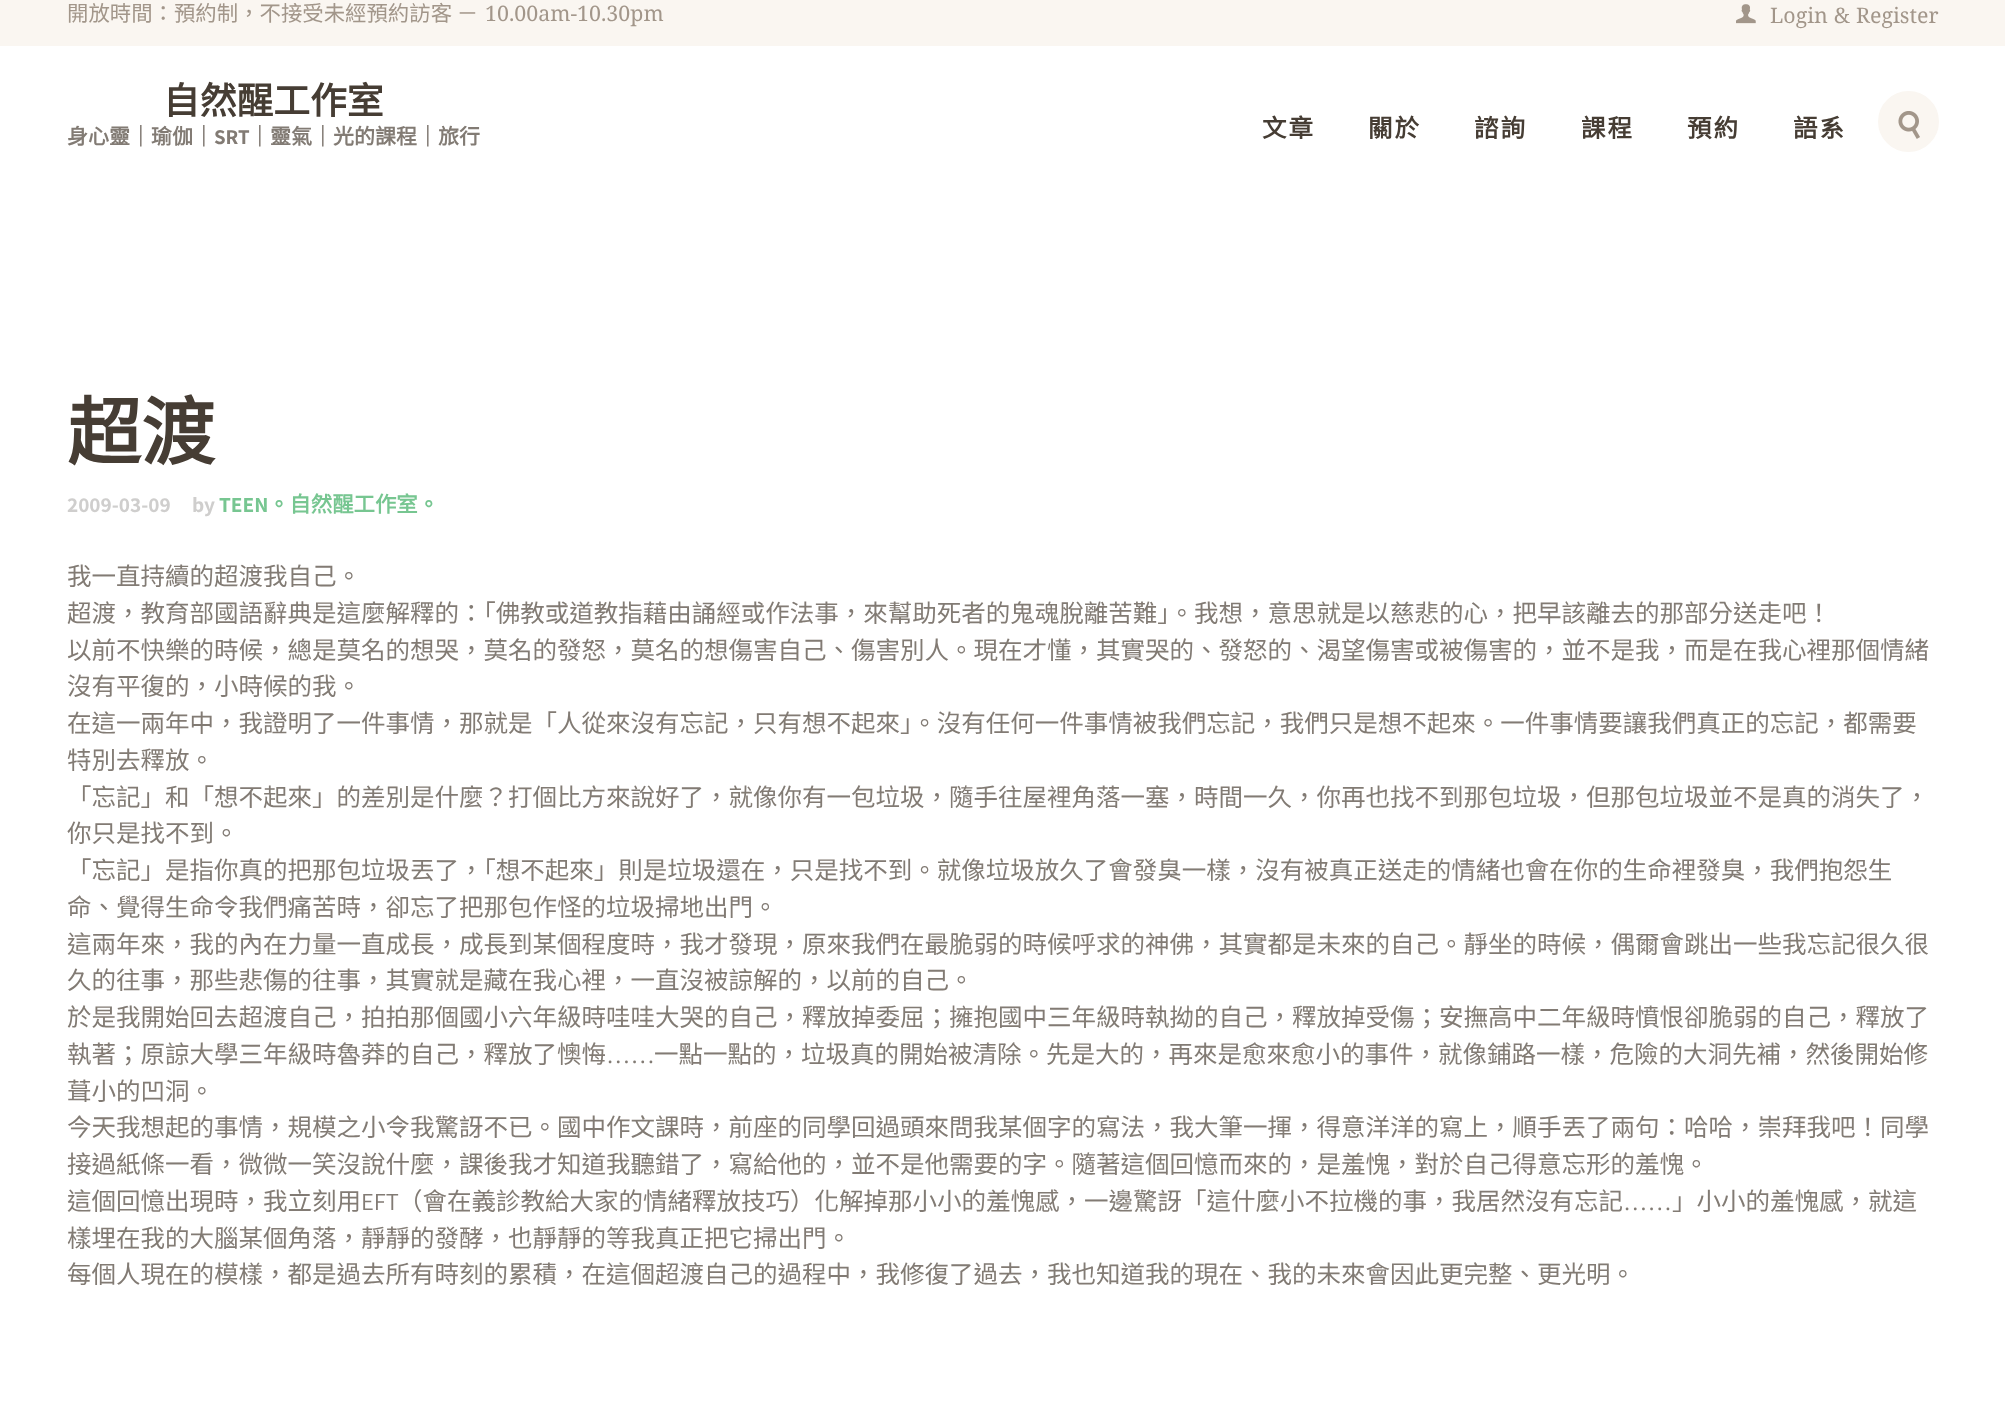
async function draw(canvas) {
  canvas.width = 2005;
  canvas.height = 1427;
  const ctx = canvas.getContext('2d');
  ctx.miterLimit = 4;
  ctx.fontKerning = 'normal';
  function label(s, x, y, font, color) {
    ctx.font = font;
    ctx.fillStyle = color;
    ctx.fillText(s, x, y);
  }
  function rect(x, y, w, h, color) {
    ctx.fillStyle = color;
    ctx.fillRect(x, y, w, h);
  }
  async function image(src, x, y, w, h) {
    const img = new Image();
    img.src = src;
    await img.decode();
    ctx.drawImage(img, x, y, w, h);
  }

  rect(0, 0, 2005, 1427, '#fff');
  rect(0, 0, 2005, 46, '#faf6f1');
  label('開放時間：預約制，不接受未經預約訪客 －', 67, 21, '21.4px Noto Sans CJK TC', '#a2968a');
  label('10.00am-10.30pm', 485, 21, '21.4px Noto Serif', '#a2968a');
  await image('assets/img1.png', 1736, 4, 20, 20);
  label('Login', 1770, 23, '21.4px Noto Serif', '#a2968a');
  label('&', 1834, 23, '21.4px Noto Serif', '#a2968a');
  label('Register', 1856, 23, '21.4px Noto Serif', '#a2968a');
  label('自然醒工作室', 163, 114, 'bold 36.75px Noto Sans CJK TC', '#463d34');
  label('身心靈｜瑜伽｜', 67, 144, 'bold 21px Noto Sans CJK TC', '#827b74');
  label('SRT', 214, 144, 'bold 21px Assistant', '#827b74');
  label('｜靈氣｜光的課程｜旅行', 249, 144, 'bold 21px Noto Sans CJK TC', '#827b74');
  ctx.letterSpacing = '2px';
  label('文章', 1262, 137, 'bold 24.5px Noto Sans CJK TC', '#463d34');
  label('關於', 1368, 137, 'bold 24.5px Noto Sans CJK TC', '#463d34');
  label('諮詢', 1474, 137, 'bold 24.5px Noto Sans CJK TC', '#463d34');
  label('課程', 1581, 137, 'bold 24.5px Noto Sans CJK TC', '#463d34');
  label('預約', 1687, 137, 'bold 24.5px Noto Sans CJK TC', '#463d34');
  label('語系', 1793, 137, 'bold 24.5px Noto Sans CJK TC', '#463d34');
  ctx.fillStyle = '#faf6f1';
  ctx.beginPath();
  ctx.arc(1908.5, 121.5, 29.5, 0, 2 * Math.PI);
  ctx.fill();
  ctx.strokeStyle = '#faf6f1';
  ctx.lineWidth = 2;
  ctx.stroke();
  await image('assets/img2.png', 1898, 111, 22, 28);
  ctx.letterSpacing = '0px';
  label('超渡', 67, 459, 'bold 74px Noto Sans CJK TC', '#463d34');
  label('2009-03-09', 67, 512, 'bold 21.4px Assistant', '#cfcecd');
  label('by', 192, 512, 'bold 21.4px Assistant', '#cfcecd');
  label('TEEN', 219, 512, 'bold 21.4px Assistant', '#77c691');
  label('。自然醒工作室。', 268, 512, 'bold 21.4px Noto Sans CJK TC', '#77c691');
  label('我一直持續的超渡我自己。', 67, 585, '24.5px Noto Sans CJK TC', '#827b74');
  label('超渡，教育部國語辭典是這麼解釋的：「佛教或道教指藉由誦經或作法事，來幫助死者的鬼魂脫離苦難」。我想，意思就是以慈悲的心，把早該離去的那部分送走吧！', 67, 622, '24.5px Noto Sans CJK TC', '#827b74');
  label('以前不快樂的時候，總是莫名的想哭，莫名的發怒，莫名的想傷害自己、傷害別人。現在才懂，其實哭的、發怒的、渴望傷害或被傷害的，並不是我，而是在我心裡那個情緒', 67, 659, '24.5px Noto Sans CJK TC', '#827b74');
  label('沒有平復的，小時候的我。', 67, 695, '24.5px Noto Sans CJK TC', '#827b74');
  label('在這一兩年中，我證明了一件事情，那就是「人從來沒有忘記，只有想不起來」。沒有任何一件事情被我們忘記，我們只是想不起來。一件事情要讓我們真正的忘記，都需要', 67, 732, '24.5px Noto Sans CJK TC', '#827b74');
  label('特別去釋放。', 67, 769, '24.5px Noto Sans CJK TC', '#827b74');
  label('「忘記」和「想不起來」的差別是什麼？打個比方來說好了，就像你有一包垃圾，隨手往屋裡角落一塞，時間一久，你再也找不到那包垃圾，但那包垃圾並不是真的消失了，', 67, 806, '24.5px Noto Sans CJK TC', '#827b74');
  label('你只是找不到。', 67, 842, '24.5px Noto Sans CJK TC', '#827b74');
  label('「忘記」是指你真的把那包垃圾丟了，「想不起來」則是垃圾還在，只是找不到。就像垃圾放久了會發臭一樣，沒有被真正送走的情緒也會在你的生命裡發臭，我們抱怨生', 67, 879, '24.5px Noto Sans CJK TC', '#827b74');
  label('命、覺得生命令我們痛苦時，卻忘了把那包作怪的垃圾掃地出門。', 67, 916, '24.5px Noto Sans CJK TC', '#827b74');
  label('這兩年來，我的內在力量一直成長，成長到某個程度時，我才發現，原來我們在最脆弱的時候呼求的神佛，其實都是未來的自己。靜坐的時候，偶爾會跳出一些我忘記很久很', 67, 953, '24.5px Noto Sans CJK TC', '#827b74');
  label('久的往事，那些悲傷的往事，其實就是藏在我心裡，一直沒被諒解的，以前的自己。', 67, 989, '24.5px Noto Sans CJK TC', '#827b74');
  label('於是我開始回去超渡自己，拍拍那個國小六年級時哇哇大哭的自己，釋放掉委屈；擁抱國中三年級時執拗的自己，釋放掉受傷；安撫高中二年級時憤恨卻脆弱的自己，釋放了', 67, 1026, '24.5px Noto Sans CJK TC', '#827b74');
  label('執著；原諒大學三年級時魯莽的自己，釋放了懊悔', 67, 1063, '24.5px Noto Sans CJK TC', '#827b74');
  label('……', 606, 1063, '24.5px Assistant', '#827b74');
  label('一點一點的，垃圾真的開始被清除。先是大的，再來是愈來愈小的事件，就像鋪路一樣，危險的大洞先補，然後開始修', 654, 1063, '24.5px Noto Sans CJK TC', '#827b74');
  label('葺小的凹洞。', 67, 1100, '24.5px Noto Sans CJK TC', '#827b74');
  label('今天我想起的事情，規模之小令我驚訝不已。國中作文課時，前座的同學回過頭來問我某個字的寫法，我大筆一揮，得意洋洋的寫上，順手丟了兩句：哈哈，崇拜我吧！同學', 67, 1136, '24.5px Noto Sans CJK TC', '#827b74');
  label('接過紙條一看，微微一笑沒說什麼，課後我才知道我聽錯了，寫給他的，並不是他需要的字。隨著這個回憶而來的，是羞愧，對於自己得意忘形的羞愧。', 67, 1173, '24.5px Noto Sans CJK TC', '#827b74');
  label('這個回憶出現時，我立刻用', 67, 1210, '24.5px Noto Sans CJK TC', '#827b74');
  label('EFT', 361, 1210, '24.5px Assistant', '#827b74');
  label('（會在義診教給大家的情緒釋放技巧）化解掉那小小的羞愧感，一邊驚訝「這什麼小不拉機的事，我居然沒有忘記', 398, 1210, '24.5px Noto Sans CJK TC', '#827b74');
  label('……', 1623, 1210, '24.5px Assistant', '#827b74');
  label('」小小的羞愧感，就這', 1672, 1210, '24.5px Noto Sans CJK TC', '#827b74');
  label('樣埋在我的大腦某個角落，靜靜的發酵，也靜靜的等我真正把它掃出門。', 67, 1247, '24.5px Noto Sans CJK TC', '#827b74');
  label('每個人現在的模樣，都是過去所有時刻的累積，在這個超渡自己的過程中，我修復了過去，我也知道我的現在、我的未來會因此更完整、更光明。', 67, 1283, '24.5px Noto Sans CJK TC', '#827b74');
}

draw(document.querySelector('canvas'));
